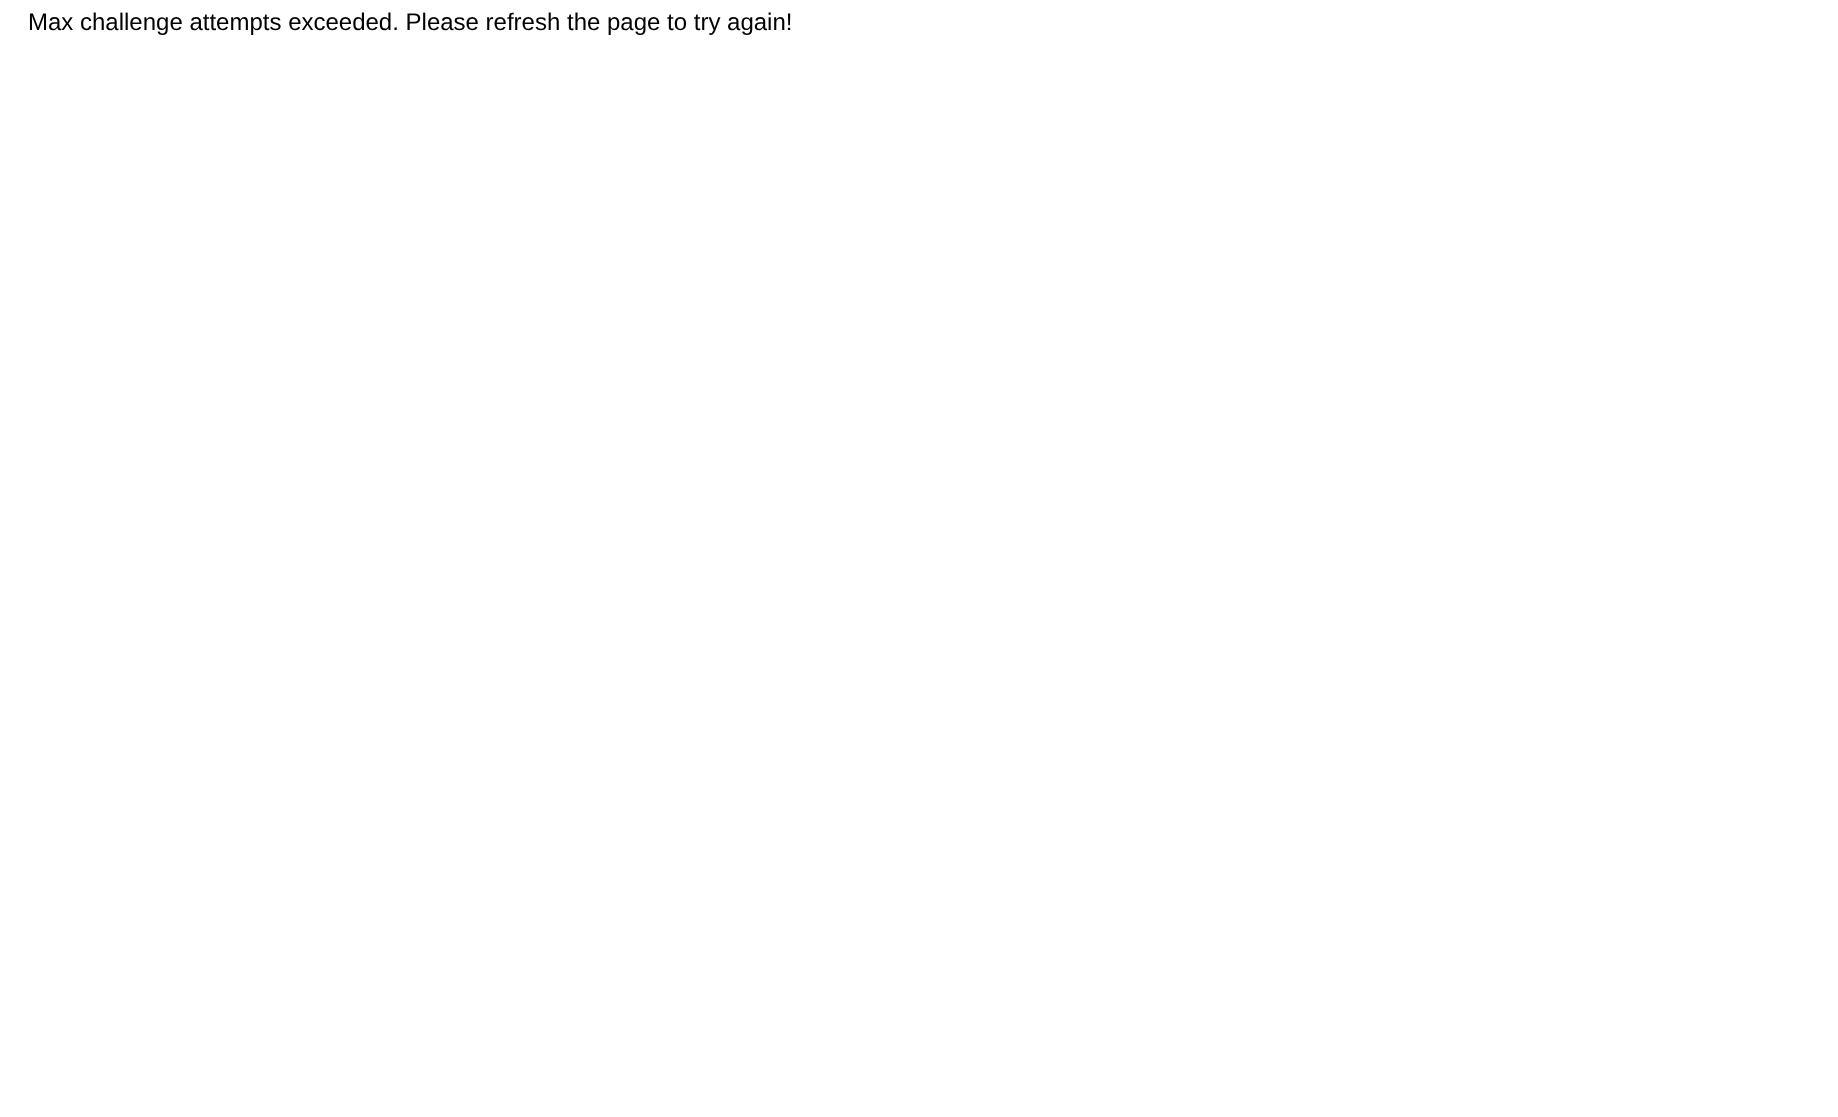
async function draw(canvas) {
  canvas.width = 1838;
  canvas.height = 1117;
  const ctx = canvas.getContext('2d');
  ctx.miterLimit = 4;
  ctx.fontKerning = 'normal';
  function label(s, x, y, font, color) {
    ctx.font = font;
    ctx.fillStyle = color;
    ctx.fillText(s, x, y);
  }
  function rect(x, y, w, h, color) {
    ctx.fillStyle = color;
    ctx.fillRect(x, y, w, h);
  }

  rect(0, 0, 1838, 1117, '#fff');
  label('Max challenge attempts exceeded. Please refresh the page to try again!', 28, 30, '24px Liberation Sans', '#000');
}

draw(document.querySelector('canvas'));
